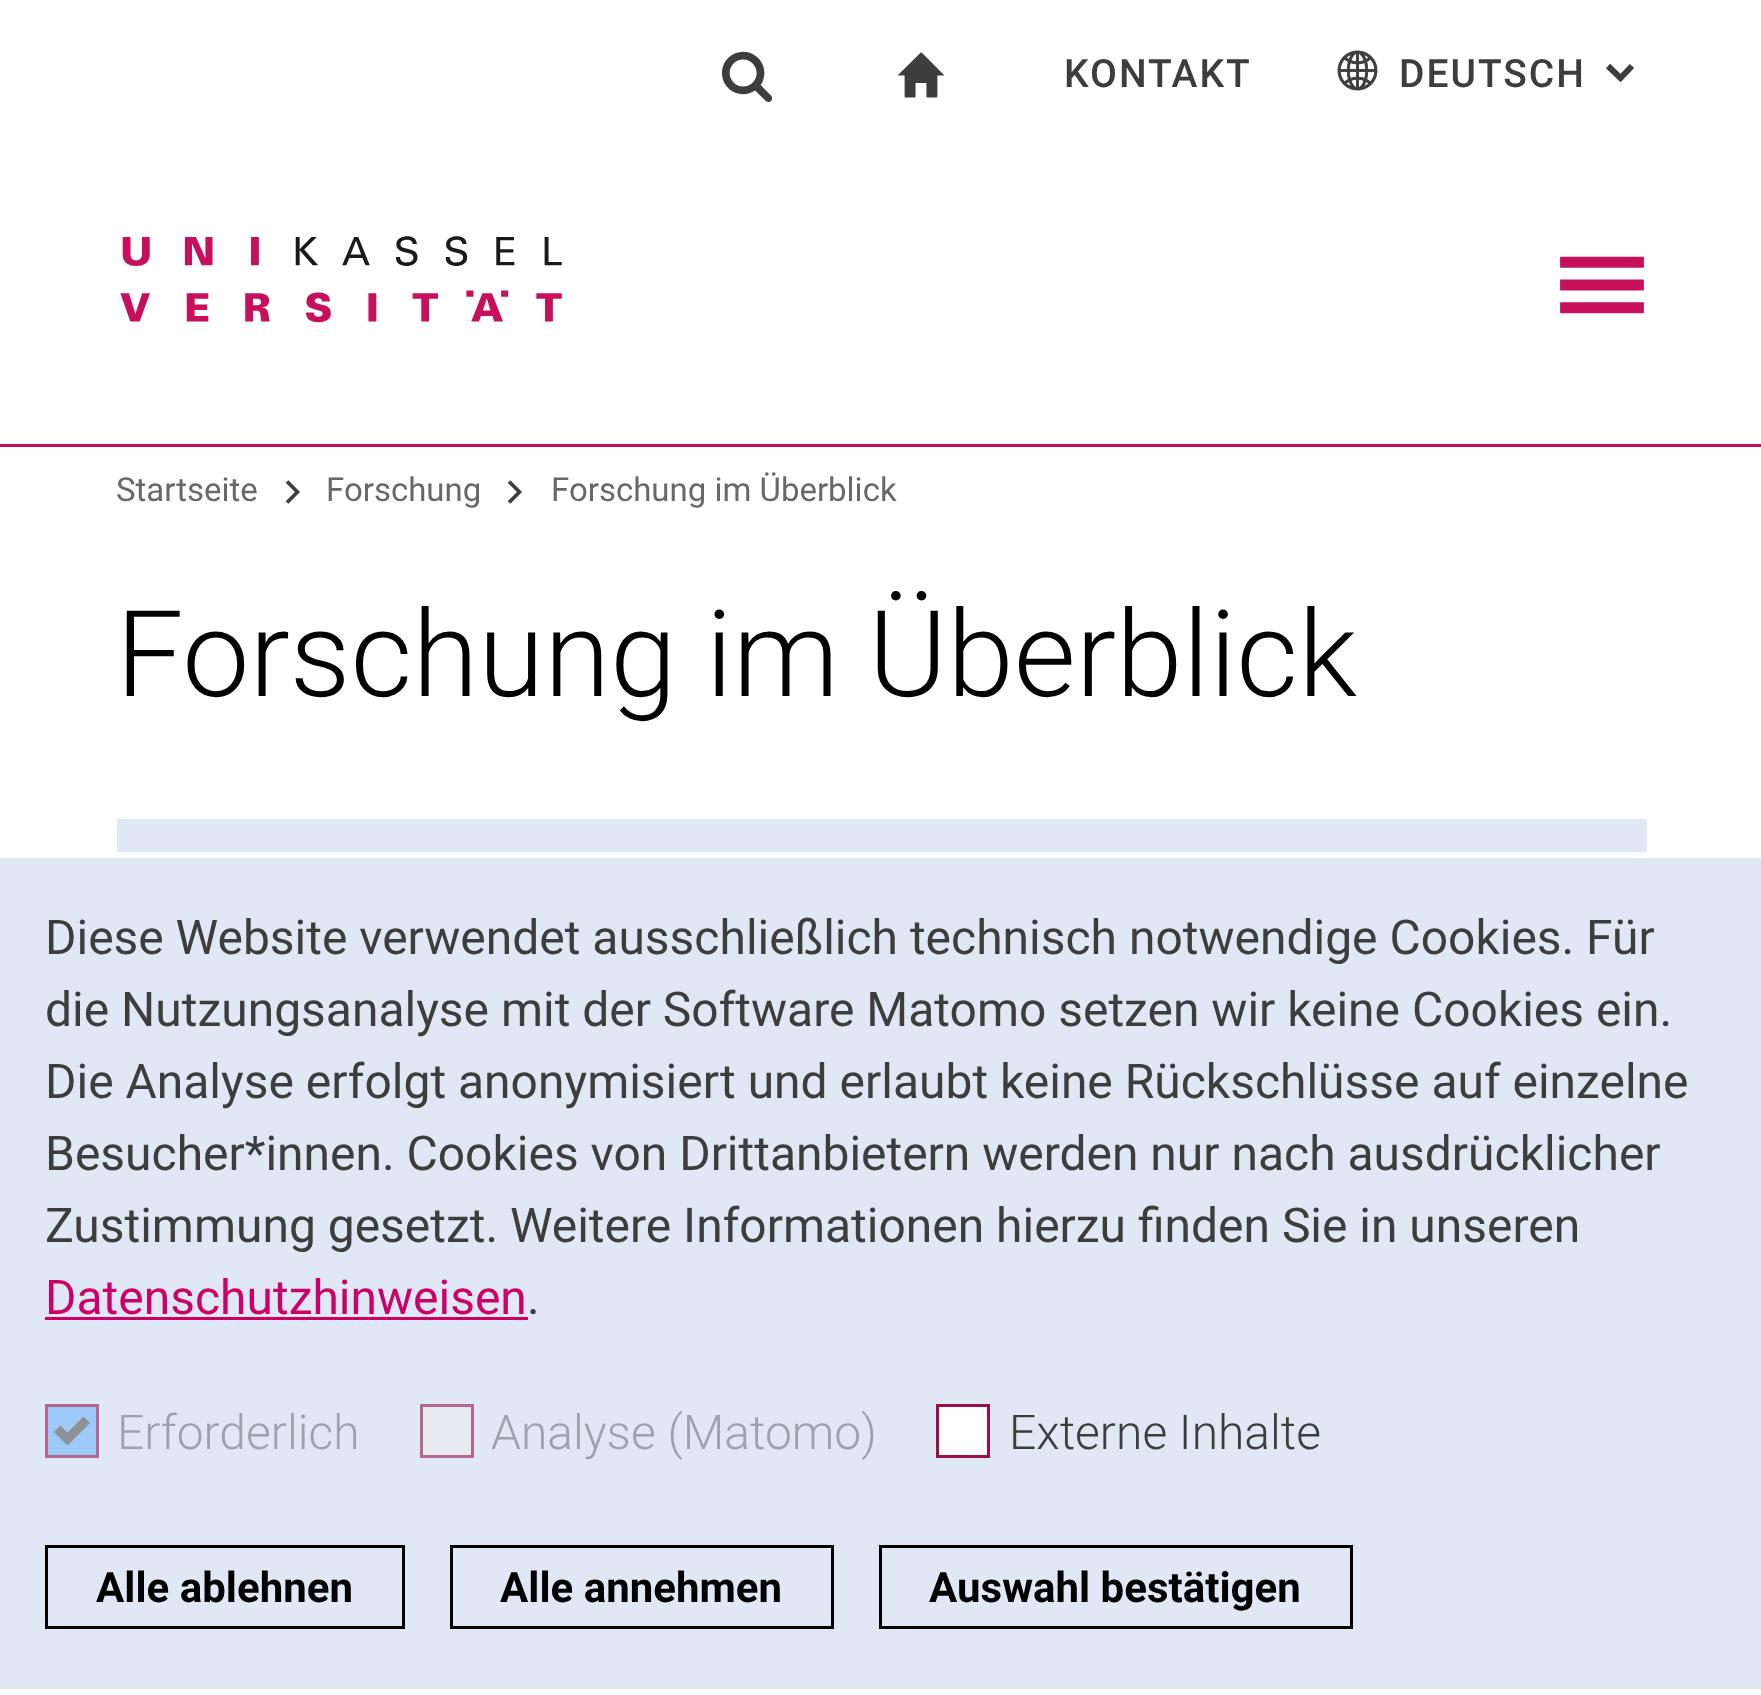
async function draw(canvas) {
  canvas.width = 1761;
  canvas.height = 1695;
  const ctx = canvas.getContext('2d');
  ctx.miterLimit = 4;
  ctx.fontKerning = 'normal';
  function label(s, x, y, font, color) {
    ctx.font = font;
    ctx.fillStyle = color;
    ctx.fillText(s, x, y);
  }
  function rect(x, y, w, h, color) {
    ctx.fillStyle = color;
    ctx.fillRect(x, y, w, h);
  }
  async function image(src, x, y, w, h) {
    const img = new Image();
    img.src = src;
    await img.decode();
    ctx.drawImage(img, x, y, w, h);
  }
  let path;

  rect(0, 0, 1761, 1695, '#fff');
  rect(0, 444, 1761, 3, '#c7105c');
  await image('assets/img1.png', 722, 51, 50, 51);
  await image('assets/img2.png', 897, 52, 48, 46);
  ctx.letterSpacing = '2px';
  label('KONTAKT', 1064, 87, '500 39px Roboto', '#3d3d3d');
  await image('assets/img3.png', 1337, 50, 41, 41);
  label('DEUTSCH', 1399, 87, '500 39px Roboto', '#3d3d3d');
  path = new Path2D('M1632 66L1620.5 78L1608 66');
  ctx.strokeStyle = '#3d3d3d';
  ctx.lineWidth = 6;
  ctx.stroke(path);
  await image('assets/img4.png', 120, 236, 442, 87);
  await image('assets/img5.png', 1560, 256, 84, 58);
  ctx.letterSpacing = '0px';
  label('Startseite', 116, 501, '33px Roboto', '#686868');
  path = new Path2D('M287 502.5L297.5 492L287 481.5');
  ctx.lineWidth = 3.6;
  ctx.stroke(path);
  label('Forschung', 326, 501, '33px Roboto', '#686868');
  path = new Path2D('M509 502.5L519.5 492L509 481.5');
  ctx.stroke(path);
  label('Forschung im Überblick', 551, 501, '33px Roboto', '#686868');
  label('Forschung im Überblick', 116, 696, '300 120px Roboto', '#000');
  rect(117, 819, 1530, 33, '#e1e8f5');
  rect(0, 858, 1761, 831, '#e1e8f5');
  label('Diese Website verwendet ausschließlich technisch notwendige Cookies. Für', 45, 954, '48px Roboto', '#3d3d3d');
  label('die Nutzungsanalyse mit der Software Matomo setzen wir keine Cookies ein.', 45, 1026, '48px Roboto', '#3d3d3d');
  label('Die Analyse erfolgt anonymisiert und erlaubt keine Rückschlüsse auf einzelne', 45, 1098, '48px Roboto', '#3d3d3d');
  label('Besucher*innen. Cookies von Drittanbietern werden nur nach ausdrücklicher', 45, 1170, '48px Roboto', '#3d3d3d');
  label('Zustimmung gesetzt. Weitere Informationen hierzu finden Sie in unseren', 45, 1242, '48px Roboto', '#3d3d3d');
  label('Datenschutzhinweisen', 45, 1314, '48px Roboto', '#c06');
  rect(45, 1317, 483, 3, '#c06');
  label('.', 527, 1314, '48px Roboto', '#3d3d3d');
  ctx.fillStyle = '#9ec8f8';
  ctx.beginPath();
  ctx.rect(46.5, 1405.5, 51, 51);
  ctx.fill();
  ctx.strokeStyle = '#b7668d';
  ctx.lineWidth = 3;
  ctx.stroke();
  label('Erforderlich', 117, 1449, '300 48px Roboto', '#9ba3ad');
  ctx.fillStyle = '#8e9196';
  path = new Path2D('M83.5 1416.5L67.5 1432.5L60.5 1425.5L54 1432L67.5 1445.5L90 1423Z');
  ctx.fill(path);
  ctx.fillStyle = '#e6eaf1';
  ctx.beginPath();
  ctx.rect(421.5, 1405.5, 51, 51);
  ctx.fill();
  ctx.stroke();
  label('Analyse (Matomo)', 491, 1449, '300 48px Roboto', '#9ba3ad');
  ctx.fillStyle = '#fff';
  ctx.beginPath();
  ctx.rect(937.5, 1405.5, 51, 51);
  ctx.fill();
  ctx.strokeStyle = '#9b1047';
  ctx.stroke();
  label('Externe Inhalte', 1009, 1449, '300 48px Roboto', '#3d3d3d');
  ctx.strokeStyle = '#000';
  ctx.strokeRect(46.5, 1546.5, 357, 81);
  label('Alle ablehnen', 96, 1602, 'bold 42px Roboto', '#000');
  ctx.strokeRect(451.5, 1546.5, 381, 81);
  label('Alle annehmen', 500, 1602, 'bold 42px Roboto', '#000');
  ctx.strokeRect(880.5, 1546.5, 471, 81);
  label('Auswahl bestätigen', 929, 1602, 'bold 42px Roboto', '#000');
}

draw(document.querySelector('canvas'));
